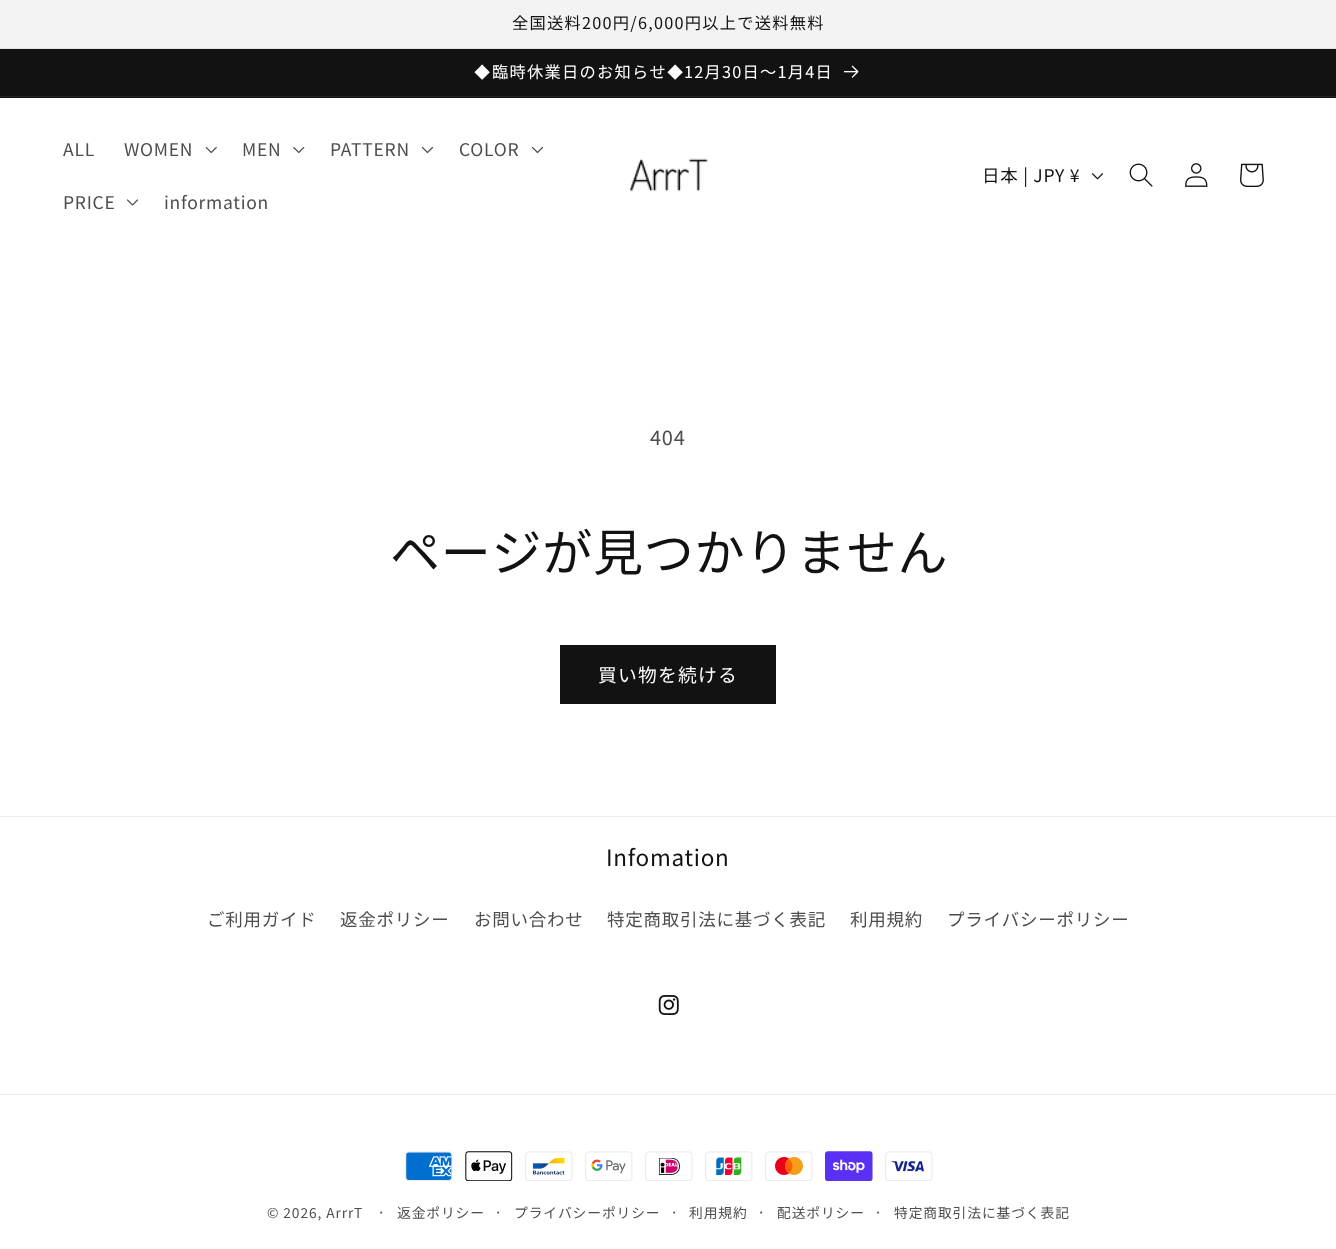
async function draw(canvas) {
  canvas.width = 1336;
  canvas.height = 1249;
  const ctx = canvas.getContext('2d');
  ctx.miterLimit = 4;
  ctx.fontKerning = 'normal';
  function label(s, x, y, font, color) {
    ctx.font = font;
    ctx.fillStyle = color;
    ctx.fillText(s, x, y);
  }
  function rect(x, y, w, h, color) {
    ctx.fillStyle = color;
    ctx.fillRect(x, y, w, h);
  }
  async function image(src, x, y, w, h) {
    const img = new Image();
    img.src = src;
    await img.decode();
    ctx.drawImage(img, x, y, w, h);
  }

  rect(0, 0, 1336, 1249, '#fff');
  rect(0, 0, 1336, 48, '#f3f3f3');
  rect(0, 48, 1336, 1, '#e1e1e1');
  ctx.letterSpacing = '1.25px';
  label('全国送料200円/6,000円以上で送料無料', 512, 29, '16.25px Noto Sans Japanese', '#121212');
  rect(0, 49, 1336, 49, '#121212');
  rect(0, 96, 1336, 1, '#252525');
  label('◆', 474, 78, '500 16.25px WenQuanYi Zen Hei', '#fff');
  label('臨時休業日のお知らせ', 492, 78, '16.25px Noto Sans Japanese', '#fff');
  label('◆', 667, 78, '500 16.25px WenQuanYi Zen Hei', '#fff');
  label('12月30日～1月4日', 684, 78, '16.25px Noto Sans Japanese', '#fff');
  await image('assets/img1.png', 844, 65, 15, 13);
  ctx.letterSpacing = '0.75px';
  label('ALL', 63, 156, '17.5px Noto Sans Japanese', '#4d4d4d');
  label('WOMEN', 124, 156, '17.5px Noto Sans Japanese', '#4d4d4d');
  await image('assets/img2.png', 205, 146, 12, 8);
  label('MEN', 242, 156, '17.5px Noto Sans Japanese', '#4d4d4d');
  await image('assets/img3.png', 293, 146, 12, 8);
  label('PATTERN', 330, 156, '17.5px Noto Sans Japanese', '#4d4d4d');
  await image('assets/img4.png', 421, 146, 13, 8);
  label('COLOR', 459, 156, '17.5px Noto Sans Japanese', '#4d4d4d');
  await image('assets/img4.png', 531, 146, 13, 8);
  label('PRICE', 63, 209, '17.5px Noto Sans Japanese', '#4d4d4d');
  await image('assets/img5.png', 127, 199, 11, 7);
  label('information', 164, 209, '17.5px Noto Sans Japanese', '#4d4d4d');
  await image('assets/img6.png', 629, 158, 79, 34);
  label('日本 | JPY ¥', 982, 182, '17.5px Noto Sans Japanese', '#121212');
  await image('assets/img7.png', 1091, 173, 13, 7);
  await image('assets/img8.png', 1129, 163, 24, 24);
  await image('assets/img9.png', 1185, 163, 23, 24);
  await image('assets/img10.png', 1240, 163, 24, 24);
  label('404', 650, 445, '20px Noto Sans Japanese', '#4d4d4d');
  label('ページが見つかりません', 390, 571, '50px Noto Sans Japanese', '#121212');
  rect(560, 645, 216, 59, '#121212');
  ctx.letterSpacing = '1.25px';
  label('買い物を続ける', 598, 682, '18.75px Noto Sans Japanese', '#fff');
  rect(0, 816, 1336, 1, '#ececec');
  ctx.letterSpacing = '0.75px';
  label('Infomation', 606, 866, '22.5px Noto Sans Japanese', '#121212');
  label('ご利用ガイド', 207, 926, '17.5px Noto Sans Japanese', '#4d4d4d');
  label('返金ポリシー', 340, 926, '17.5px Noto Sans Japanese', '#4d4d4d');
  label('お問い合わせ', 474, 926, '17.5px Noto Sans Japanese', '#4d4d4d');
  label('特定商取引法に基づく表記', 607, 926, '17.5px Noto Sans Japanese', '#4d4d4d');
  label('利用規約', 850, 926, '17.5px Noto Sans Japanese', '#4d4d4d');
  label('プライバシーポリシー', 947, 926, '17.5px Noto Sans Japanese', '#4d4d4d');
  await image('assets/img11.png', 658, 995, 21, 20);
  rect(0, 1094, 1336, 1, '#ececec');
  await image('assets/img12.png', 405, 1151, 48, 30);
  await image('assets/img13.png', 465, 1151, 48, 30);
  await image('assets/img14.png', 525, 1151, 48, 30);
  await image('assets/img15.png', 585, 1151, 48, 30);
  await image('assets/img16.png', 645, 1151, 48, 30);
  await image('assets/img17.png', 705, 1151, 48, 30);
  await image('assets/img18.png', 765, 1151, 48, 30);
  await image('assets/img19.png', 825, 1151, 48, 30);
  await image('assets/img20.png', 885, 1151, 48, 30);
  ctx.letterSpacing = '0.9px';
  label('© 2026, ArrrT', 267, 1218, '13.75px Noto Sans Japanese', '#4d4d4d');
  label('·', 377, 1218, '15px Noto Sans Japanese', '#4d4d4d');
  label('返金ポリシー', 397, 1218, '13.75px Noto Sans Japanese', '#4d4d4d');
  label('·', 494, 1218, '15px Noto Sans Japanese', '#4d4d4d');
  label('プライバシーポリシー', 514, 1218, '13.75px Noto Sans Japanese', '#4d4d4d');
  label('·', 670, 1218, '15px Noto Sans Japanese', '#4d4d4d');
  label('利用規約', 689, 1218, '13.75px Noto Sans Japanese', '#4d4d4d');
  label('·', 757, 1218, '15px Noto Sans Japanese', '#4d4d4d');
  label('配送ポリシー', 777, 1218, '13.75px Noto Sans Japanese', '#4d4d4d');
  label('·', 874, 1218, '15px Noto Sans Japanese', '#4d4d4d');
  label('特定商取引法に基づく表記', 894, 1218, '13.75px Noto Sans Japanese', '#4d4d4d');
}

draw(document.querySelector('canvas'));
